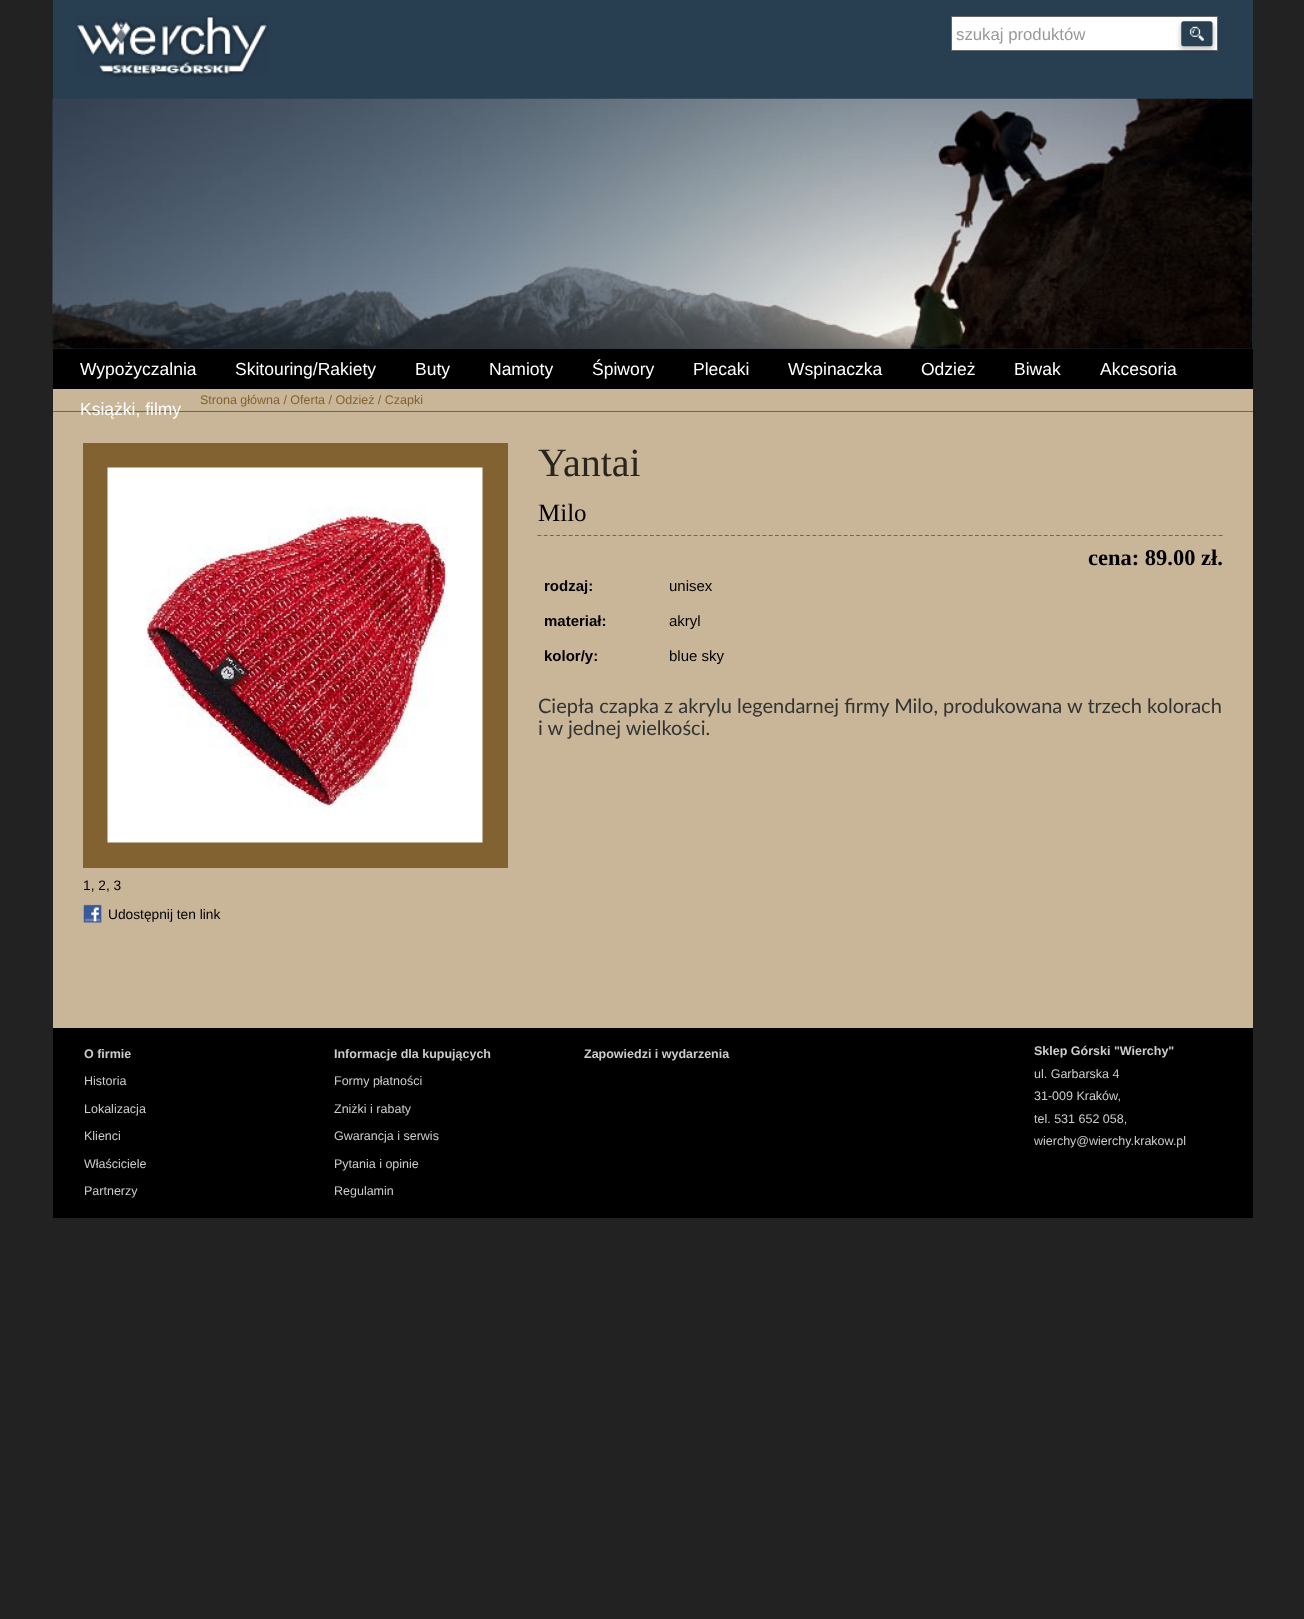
async function draw(canvas) {
  canvas.width = 1304;
  canvas.height = 1619;
  const ctx = canvas.getContext('2d');
  ctx.miterLimit = 4;
  ctx.fontKerning = 'normal';
  function label(s, x, y, font, color) {
    ctx.font = font;
    ctx.fillStyle = color;
    ctx.fillText(s, x, y);
  }
  function rect(x, y, w, h, color) {
    ctx.fillStyle = color;
    ctx.fillRect(x, y, w, h);
  }
  async function image(src, x, y, w, h) {
    const img = new Image();
    img.src = src;
    await img.decode();
    ctx.drawImage(img, x, y, w, h);
  }
  let path;

  rect(0, 0, 1304, 1619, '#222');
  rect(53, 0, 1200, 349, '#283f51');
  await image('assets/img1.png', 76, 15, 193, 62);
  ctx.fillStyle = '#fff';
  ctx.beginPath();
  ctx.rect(951.5, 16.5, 266, 34);
  ctx.fill();
  ctx.strokeStyle = '#666';
  ctx.stroke();
  label('szukaj produktów', 956, 40, '16.75px Liberation Sans', '#999');
  ctx.fillStyle = '#00000033';
  ctx.filter = 'blur(2px)';
  ctx.beginPath();
  ctx.roundRect(1180, 23, 34, 27, 4);
  ctx.fill();
  ctx.filter = 'none';
  await image('assets/img2.png', 1181, 21, 32, 26);
  await image('assets/img3.png', 52, 98, 1201, 251);
  rect(53, 349, 1200, 40, '#000');
  label('Wypożyczalnia', 80, 375, '17.5px Liberation Sans', '#fff');
  label('Skitouring/Rakiety', 235, 375, '17.5px Liberation Sans', '#fff');
  label('Buty', 415, 375, '17.5px Liberation Sans', '#fff');
  label('Namioty', 489, 375, '17.5px Liberation Sans', '#fff');
  label('Śpiwory', 592, 375, '17.5px Liberation Sans', '#fff');
  label('Plecaki', 693, 375, '17.5px Liberation Sans', '#fff');
  label('Wspinaczka', 788, 375, '17.5px Liberation Sans', '#fff');
  label('Odzież', 921, 375, '17.5px Liberation Sans', '#fff');
  label('Biwak', 1014, 375, '17.5px Liberation Sans', '#fff');
  label('Akcesoria', 1100, 375, '17.5px Liberation Sans', '#fff');
  rect(53, 389, 1200, 639, '#c9b598');
  rect(53, 411, 1200, 1, '#836231');
  label('Książki, filmy', 80, 415, '17.5px Liberation Sans', '#fff');
  label('Strona główna / Oferta / Odzież / Czapki', 200, 404, '12.5px Liberation Sans', '#836231');
  label('Yantai', 538, 476, '40px Liberation Serif', '#28241e');
  path = new Path2D('M537.5 535.5H1222.5');
  ctx.strokeStyle = '#836231';
  ctx.lineWidth = 1.2;
  ctx.setLineDash([3.75, 2.5]);
  ctx.stroke(path);
  label('Milo', 538, 521, '25px Liberation Serif', '#000');
  label('cena: 89.00 zł.', 1088, 565, 'bold 22.5px Liberation Serif', '#000');
  label('rodzaj:', 544, 591, 'bold 15px Liberation Sans', '#000');
  label('unisex', 669, 591, '15px Liberation Sans', '#000');
  label('materiał:', 544, 626, 'bold 15px Liberation Sans', '#000');
  label('akryl', 669, 626, '15px Liberation Sans', '#000');
  label('kolor/y:', 544, 661, 'bold 15px Liberation Sans', '#000');
  label('blue sky', 669, 661, '15px Liberation Sans', '#000');
  label('Ciepła czapka z akrylu legendarnej firmy Milo, produkowana w trzech kolorach', 538, 713, '20px Lato', '#333');
  label('i w jednej wielkości.', 538, 735, '20px Lato', '#333');
  rect(83, 443, 425, 425, '#836231');
  await image('assets/img4.png', 107, 467, 376, 376);
  label('1, 2, 3', 83, 890, '13.75px Liberation Sans', '#000');
  await image('assets/img5.png', 83, 904, 19, 19);
  label('Udostępnij ten link', 108, 919, '13.75px Liberation Sans', '#000');
  rect(53, 1028, 1200, 190, '#000');
  label('O firmie', 84, 1058, 'bold 12.5px Liberation Sans', '#ccc');
  label('Historia', 84, 1085, '12.5px Liberation Sans', '#ccc');
  label('Lokalizacja', 84, 1113, '12.5px Liberation Sans', '#ccc');
  label('Klienci', 84, 1140, '12.5px Liberation Sans', '#ccc');
  label('Właściciele', 84, 1168, '12.5px Liberation Sans', '#ccc');
  label('Partnerzy', 84, 1195, '12.5px Liberation Sans', '#ccc');
  label('Informacje dla kupujących', 334, 1058, 'bold 12.5px Liberation Sans', '#ccc');
  label('Formy płatności', 334, 1085, '12.5px Liberation Sans', '#ccc');
  label('Zniżki i rabaty', 334, 1113, '12.5px Liberation Sans', '#ccc');
  label('Gwarancja i serwis', 334, 1140, '12.5px Liberation Sans', '#ccc');
  label('Pytania i opinie', 334, 1168, '12.5px Liberation Sans', '#ccc');
  label('Regulamin', 334, 1195, '12.5px Liberation Sans', '#ccc');
  label('Zapowiedzi i wydarzenia', 584, 1058, 'bold 12.5px Liberation Sans', '#ccc');
  label('Sklep Górski "Wierchy"', 1034, 1055, 'bold 12.5px Liberation Sans', '#ccc');
  label('ul. Garbarska 4', 1034, 1078, '12.5px Liberation Sans', '#ccc');
  label('31-009 Kraków,', 1034, 1100, '12.5px Liberation Sans', '#ccc');
  label('tel. 531 652 058,', 1034, 1123, '12.5px Liberation Sans', '#ccc');
  label('wierchy@wierchy.krakow.pl', 1034, 1145, '12.5px Liberation Sans', '#ccc');
}

draw(document.querySelector('canvas'));
